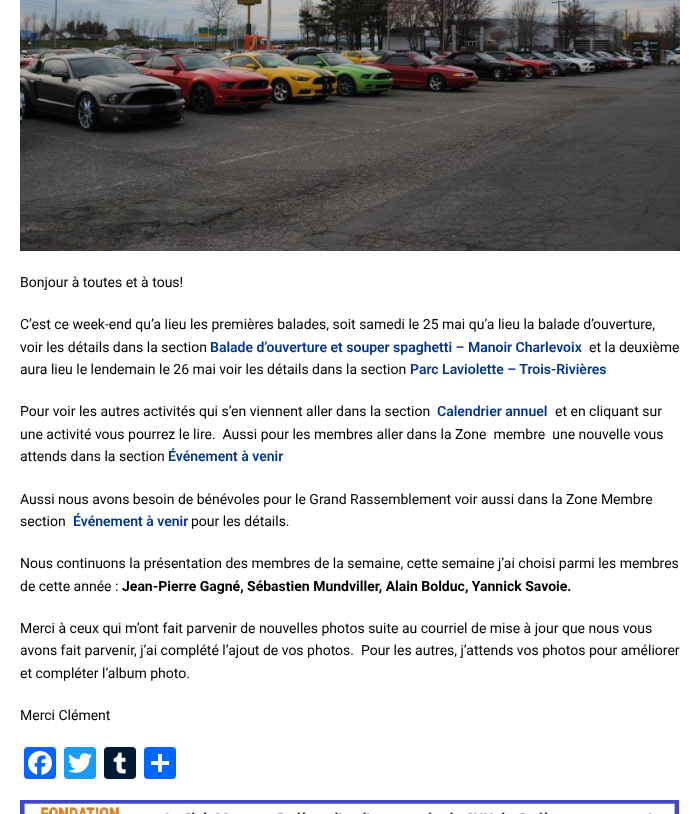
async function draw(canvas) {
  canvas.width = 700;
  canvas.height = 814;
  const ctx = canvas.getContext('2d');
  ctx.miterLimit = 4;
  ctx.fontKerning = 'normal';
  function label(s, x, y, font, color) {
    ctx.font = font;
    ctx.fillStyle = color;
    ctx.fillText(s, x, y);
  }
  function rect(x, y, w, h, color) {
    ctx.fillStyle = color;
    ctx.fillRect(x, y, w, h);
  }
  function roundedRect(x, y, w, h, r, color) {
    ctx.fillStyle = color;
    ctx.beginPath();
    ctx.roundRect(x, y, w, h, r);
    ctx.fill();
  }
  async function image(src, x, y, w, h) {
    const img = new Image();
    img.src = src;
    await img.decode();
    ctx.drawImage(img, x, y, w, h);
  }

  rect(0, 0, 700, 814, '#fff');
  await image('assets/img1.png', 20, 0, 660, 251);
  label('Bonjour à toutes et à tous!', 20, 287, '14px Roboto', '#000');
  label('C’est ce week-end qu’a lieu les premières balades, soit samedi le 25 mai qu’a lieu la balade d’ouverture,', 20, 329, '14px Roboto', '#000');
  label('voir les détails dans la section', 20, 352, '14px Roboto', '#000');
  label('Balade d’ouverture et souper spaghetti – Manoir Charlevoix', 210, 352, '600 14px Roboto', '#033689');
  label('et la deuxième', 589, 352, '14px Roboto', '#000');
  label('aura lieu le lendemain le 26 mai voir les détails dans la section', 20, 374, '14px Roboto', '#000');
  label('Parc Laviolette – Trois-Rivières', 410, 374, '600 14px Roboto', '#033689');
  label('Pour voir les autres activités qui s’en viennent aller dans la section', 20, 416, '14px Roboto', '#000');
  label('Calendrier annuel', 437, 416, '600 14px Roboto', '#033689');
  label('et en cliquant sur', 555, 416, '14px Roboto', '#000');
  label('une activité vous pourrez le lire.  Aussi pour les membres aller dans la Zone  membre  une nouvelle vous', 20, 439, '14px Roboto', '#000');
  label('attends dans la section', 20, 461, '14px Roboto', '#000');
  label('Événement à venir', 168, 461, '600 14px Roboto', '#033689');
  label('Aussi nous avons besoin de bénévoles pour le Grand Rassemblement voir aussi dans la Zone Membre', 20, 504, '14px Roboto', '#000');
  label('section', 20, 526, '14px Roboto', '#000');
  label('Événement à venir', 73, 526, '600 14px Roboto', '#033689');
  label('pour les détails.', 191, 526, '14px Roboto', '#000');
  label('Nous continuons la présentation des membres de la semaine, cette semaine j’ai choisi parmi les membres', 20, 568, '14px Roboto', '#000');
  label('de cette année :', 20, 591, '14px Roboto', '#000');
  label('Jean-Pierre Gagné, Sébastien Mundviller, Alain Bolduc, Yannick Savoie.', 122, 591, 'bold 14px Roboto', '#000');
  label('Merci à ceux qui m’ont fait parvenir de nouvelles photos suite au courriel de mise à jour que nous vous', 20, 633, '14px Roboto', '#000');
  label('avons fait parvenir, j’ai complété l’ajout de vos photos.  Pour les autres, j’attends vos photos pour améliorer', 20, 655, '14px Roboto', '#000');
  label('et compléter l’album photo.', 20, 678, '14px Roboto', '#000');
  label('Merci Clément', 20, 720, '14px Roboto', '#000');
  roundedRect(24, 747, 32, 32, 4, '#0866ff');
  await image('assets/img2.png', 28, 751, 24, 24);
  roundedRect(64, 747, 32, 32, 4, '#1d9bf0');
  await image('assets/img3.png', 68, 753, 24, 20);
  roundedRect(104, 747, 32, 32, 4, '#001935');
  await image('assets/img4.png', 113, 752, 13, 22);
  roundedRect(144, 747, 32, 32, 4, '#0166ff');
  rect(158, 754, 4, 18, '#fff');
  rect(151, 761, 18, 4, '#fff');
  await image('assets/img5.png', 20, 800, 660, 14);
}

draw(document.querySelector('canvas'));
